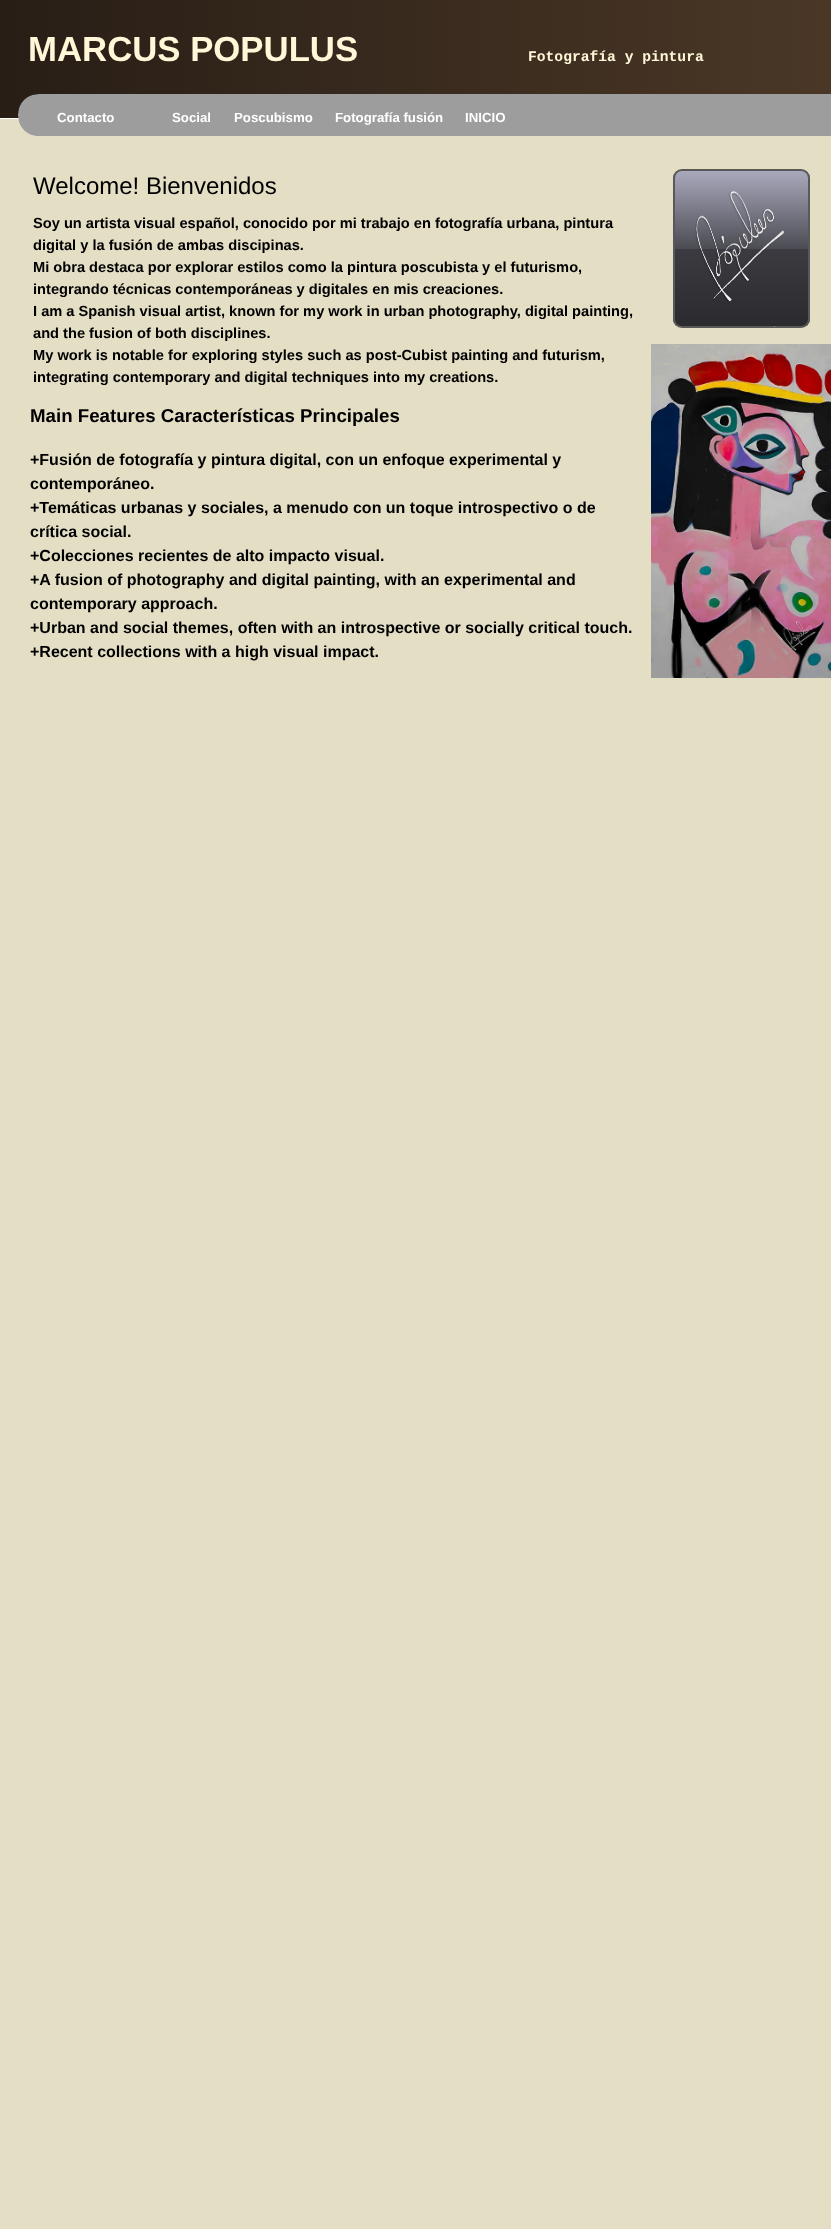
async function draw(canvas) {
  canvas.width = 831;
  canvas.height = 2229;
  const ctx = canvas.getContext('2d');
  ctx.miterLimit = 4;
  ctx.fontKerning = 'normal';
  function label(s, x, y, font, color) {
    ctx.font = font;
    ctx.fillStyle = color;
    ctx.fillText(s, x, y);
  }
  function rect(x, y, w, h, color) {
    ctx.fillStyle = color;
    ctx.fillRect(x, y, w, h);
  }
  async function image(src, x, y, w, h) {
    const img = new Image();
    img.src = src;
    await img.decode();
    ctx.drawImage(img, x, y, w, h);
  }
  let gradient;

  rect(0, 0, 831, 2229, '#e4dec5');
  gradient = ctx.createLinearGradient(0, 59, 831, 59);
  gradient.addColorStop(0, '#281e16');
  gradient.addColorStop(1, '#4a3726');
  ctx.fillStyle = gradient;
  ctx.fillRect(0, 0, 831, 118);
  rect(0, 118, 19, 1, '#fff');
  label('MARCUS POPULUS', 28, 61, 'bold 34.75px Liberation Sans', '#fff7d7');
  label('Fotografía y pintura', 528, 61, 'bold 14.65px Liberation Mono', '#fff7d7');
  await image('assets/img1.png', 18, 94, 813, 42);
  label('Contacto', 57, 122, 'bold 13.25px Liberation Sans', '#fff');
  label('Social', 172, 122, 'bold 13.25px Liberation Sans', '#fff');
  label('Poscubismo', 234, 122, 'bold 13.25px Liberation Sans', '#fff');
  label('Fotografía fusión', 335, 122, 'bold 13.25px Liberation Sans', '#fff');
  label('INICIO', 465, 122, 'bold 13.25px Liberation Sans', '#fff');
  label('Welcome! Bienvenidos', 33, 194, '24px Liberation Sans', '#000');
  ctx.save();
  ctx.beginPath();
  ctx.roundRect(673, 169, 137, 159, 9);
  ctx.clip();
  gradient = ctx.createLinearGradient(742, 171, 742, 326);
  gradient.addColorStop(0, '#a9a9bc');
  gradient.addColorStop(0.5, '#4c4c54');
  gradient.addColorStop(0.5, '#3b3b41');
  gradient.addColorStop(1, '#2a2a2f');
  ctx.fillStyle = gradient;
  ctx.fillRect(673, 171, 137, 155);
  ctx.restore();
  ctx.beginPath();
  ctx.roundRect(674, 170, 135, 157, 8);
  ctx.strokeStyle = '#595959';
  ctx.lineWidth = 2;
  ctx.stroke();
  await image('assets/img2.png', 695, 191, 89, 137);
  label('Soy un artista visual español, conocido por mi trabajo en fotografía urbana, pintura', 33, 228, 'bold 14.65px Liberation Sans', '#000');
  label('digital y la fusión de ambas discipinas.', 33, 250, 'bold 14.65px Liberation Sans', '#000');
  label('Mi obra destaca por explorar estilos como la pintura poscubista y el futurismo,', 33, 272, 'bold 14.65px Liberation Sans', '#000');
  label('integrando técnicas contemporáneas y digitales en mis creaciones.', 33, 294, 'bold 14.65px Liberation Sans', '#000');
  label('I am a Spanish visual artist, known for my work in urban photography, digital painting,', 33, 316, 'bold 14.65px Liberation Sans', '#000');
  label('and the fusion of both disciplines.', 33, 338, 'bold 14.65px Liberation Sans', '#000');
  label('My work is notable for exploring styles such as post-Cubist painting and futurism,', 33, 360, 'bold 14.65px Liberation Sans', '#000');
  label('integrating contemporary and digital techniques into my creations.', 33, 382, 'bold 14.65px Liberation Sans', '#000');
  label('Main Features Características Principales', 30, 422, 'bold 18.7px Liberation Sans', '#000');
  await image('assets/img3.png', 651, 344, 180, 334);
  label('+Fusión de fotografía y pintura digital, con un enfoque experimental y', 30, 465, 'bold 16px Liberation Sans', '#000');
  label('contemporáneo.', 30, 489, 'bold 16px Liberation Sans', '#000');
  label('+Temáticas urbanas y sociales, a menudo con un toque introspectivo o de', 30, 513, 'bold 16px Liberation Sans', '#000');
  label('crítica social.', 30, 537, 'bold 16px Liberation Sans', '#000');
  label('+Colecciones recientes de alto impacto visual.', 30, 561, 'bold 16px Liberation Sans', '#000');
  label('+A fusion of photography and digital painting, with an experimental and', 30, 585, 'bold 16px Liberation Sans', '#000');
  label('contemporary approach.', 30, 609, 'bold 16px Liberation Sans', '#000');
  label('+Urban and social themes, often with an introspective or socially critical touch.', 30, 633, 'bold 16px Liberation Sans', '#000');
  label('+Recent collections with a high visual impact.', 30, 657, 'bold 16px Liberation Sans', '#000');
}

draw(document.querySelector('canvas'));
